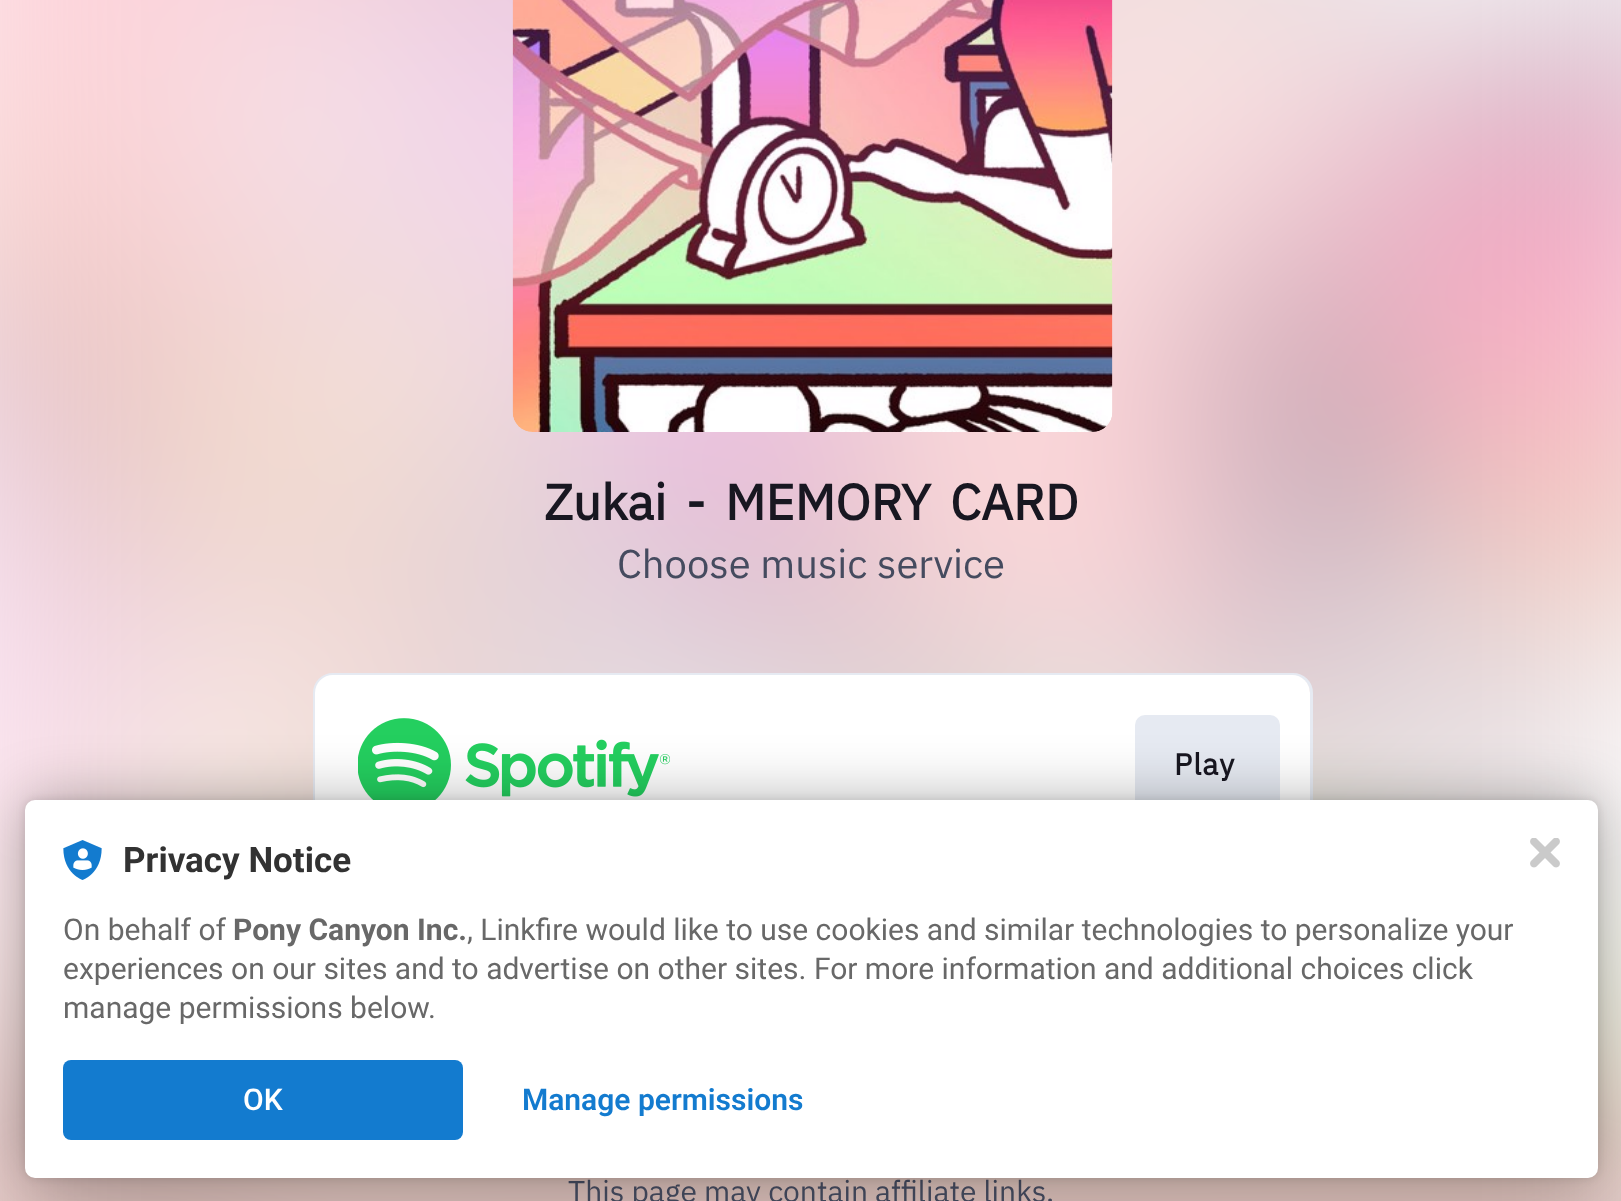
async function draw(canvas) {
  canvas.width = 1621;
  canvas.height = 1201;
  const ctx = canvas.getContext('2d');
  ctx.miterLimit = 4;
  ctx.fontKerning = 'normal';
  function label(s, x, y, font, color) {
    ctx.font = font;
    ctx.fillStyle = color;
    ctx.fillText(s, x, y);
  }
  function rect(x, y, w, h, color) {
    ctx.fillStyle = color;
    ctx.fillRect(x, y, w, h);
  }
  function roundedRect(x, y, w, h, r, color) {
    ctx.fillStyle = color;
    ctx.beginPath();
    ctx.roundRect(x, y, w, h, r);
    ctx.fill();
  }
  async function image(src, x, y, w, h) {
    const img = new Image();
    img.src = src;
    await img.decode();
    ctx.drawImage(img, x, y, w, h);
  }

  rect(0, 0, 1621, 1201, '#fff');
  await image('assets/img1.png', 0, 0, 1621, 1201);
  await image('assets/img2.png', 512, 0, 601, 432);
  ctx.wordSpacing = '7.5px';
  label('Zukai - MEMORY CARD', 544, 520, 'bold 50px IBM Plex Sans', '#181721');
  ctx.wordSpacing = '0px';
  label('Choose music service', 617, 578, '40px IBM Plex Sans', '#454b5f');
  ctx.beginPath();
  ctx.roundRect(314.5, 674.5, 997, 364, 18.5);
  ctx.strokeStyle = '#e6eaf2';
  ctx.lineWidth = 3;
  ctx.stroke();
  roundedRect(315, 675, 995, 363, 18, '#fff');
  await image('assets/img3.png', 358, 718, 312, 82);
  roundedRect(1135, 715, 145, 100, 10, '#e6eaf2');
  ctx.letterSpacing = '1px';
  label('Play', 1174, 775, 'bold 30px IBM Plex Sans', '#181721');
  ctx.letterSpacing = '0px';
  label('This page may contain affiliate links.', 568, 1202, '30px IBM Plex Sans', '#454b5f');
  ctx.fillStyle = '#0000001f';
  ctx.filter = 'blur(5px)';
  ctx.beginPath();
  ctx.roundRect(25, 800, 1573, 378, 10);
  ctx.fill();
  ctx.filter = 'none';
  ctx.fillStyle = '#0000004d';
  ctx.filter = 'blur(30px)';
  ctx.beginPath();
  ctx.roundRect(25, 800, 1573, 378, 10);
  ctx.fill();
  ctx.filter = 'none';
  roundedRect(25, 800, 1573, 378, 10, '#fff');
  await image('assets/img4.png', 63, 840, 39, 40);
  label('Privacy Notice', 123, 872, 'bold 35px Roboto', '#323232');
  label('On behalf of', 63, 940, '30px Roboto', '#686868');
  label('Pony Canyon Inc.', 233, 940, 'bold 30px Roboto', '#686868');
  label(', Linkfire would like to use cookies and similar technologies to personalize your', 467, 940, '30px Roboto', '#686868');
  label('experiences on our sites and to advertise on other sites. For more information and additional choices click', 63, 979, '30px Roboto', '#686868');
  label('manage permissions below.', 63, 1018, '30px Roboto', '#686868');
  roundedRect(63, 1060, 400, 80, 8, '#137bcf');
  label('OK', 243, 1110, '500 30px Roboto', '#fff');
  label('Manage permissions', 522, 1110, '600 30px Roboto', '#137bcf');
  await image('assets/img5.png', 1530, 838, 30, 30);
}

draw(document.querySelector('canvas'));
